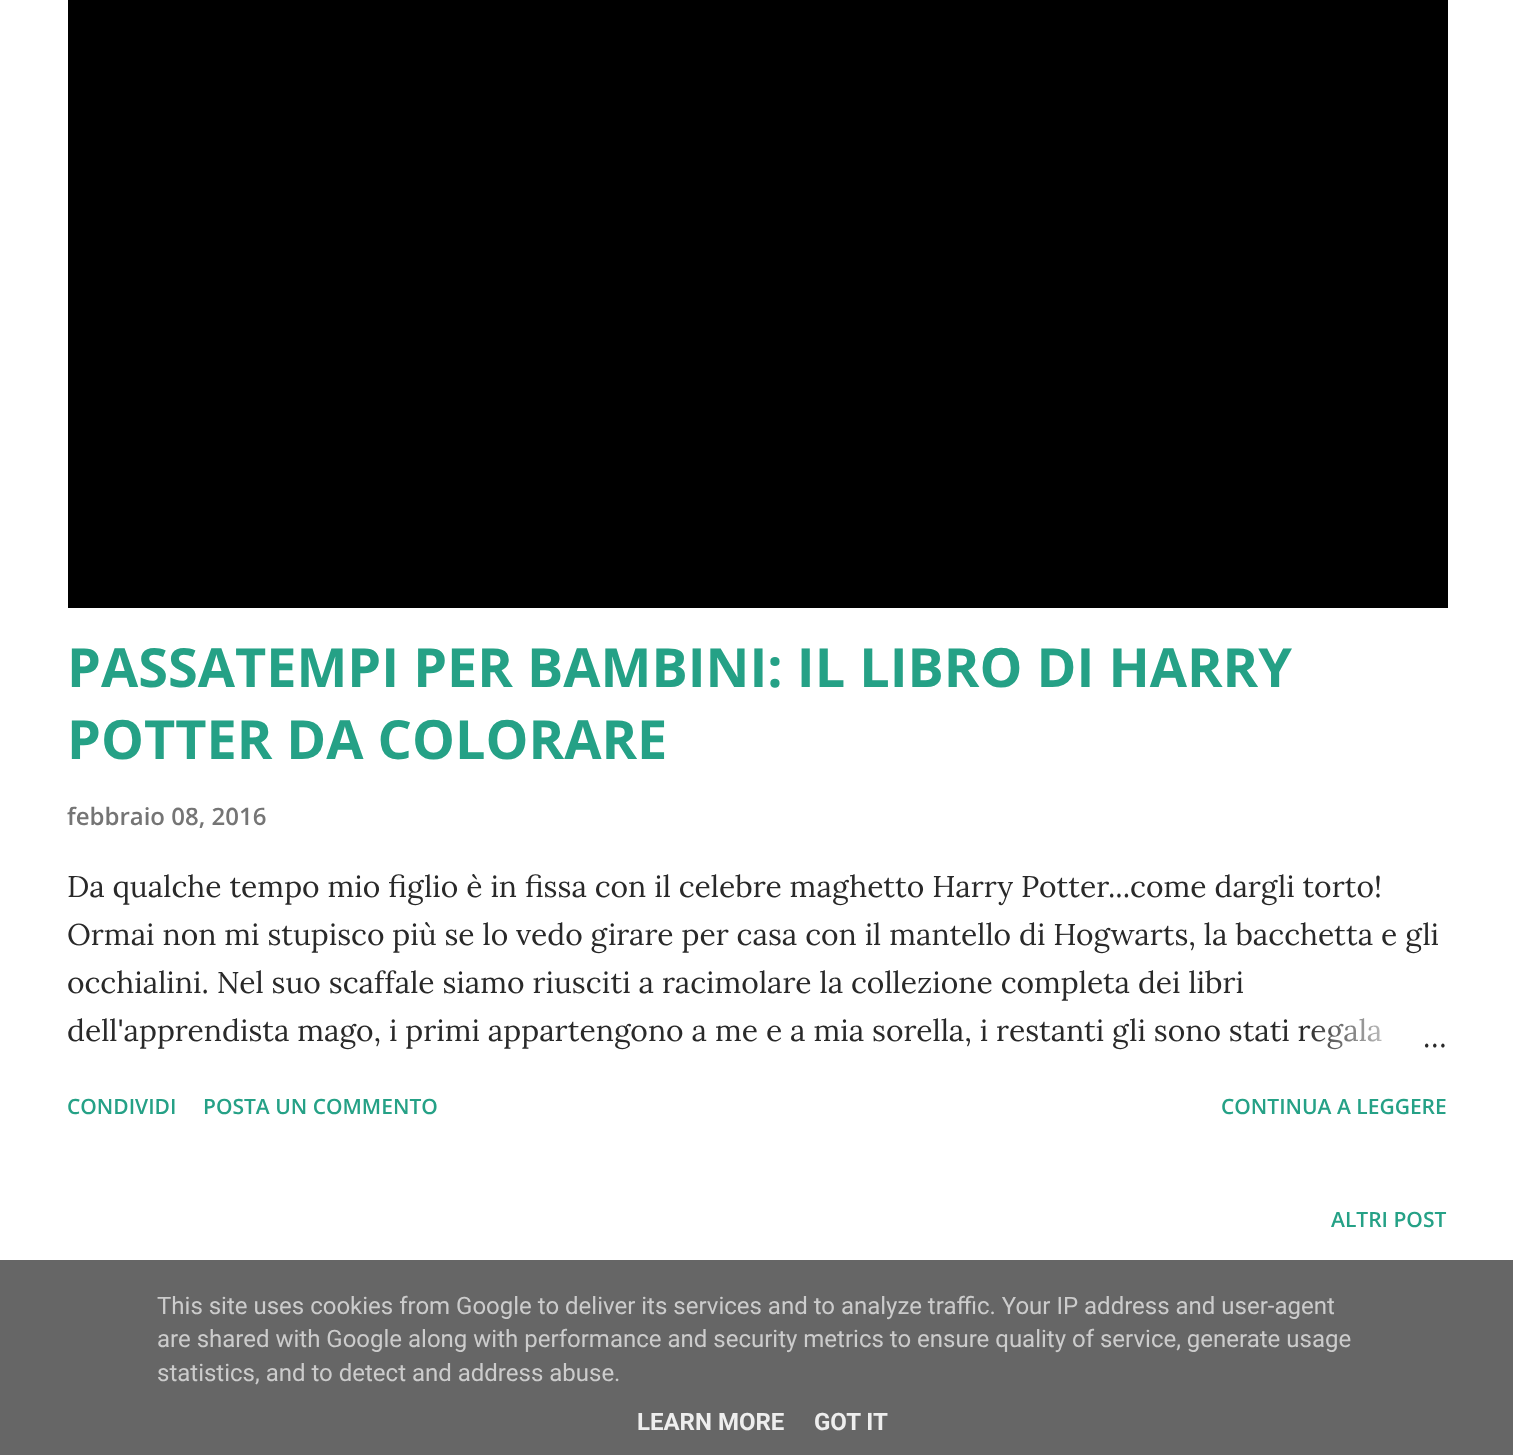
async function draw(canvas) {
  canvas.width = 1513;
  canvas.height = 1455;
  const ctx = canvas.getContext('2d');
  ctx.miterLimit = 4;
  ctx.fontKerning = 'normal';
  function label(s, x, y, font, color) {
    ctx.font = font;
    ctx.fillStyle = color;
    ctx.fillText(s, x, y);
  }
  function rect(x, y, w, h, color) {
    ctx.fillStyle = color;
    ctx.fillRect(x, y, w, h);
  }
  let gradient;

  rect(0, 0, 1513, 1455, '#fff');
  rect(68, 0, 1380, 608, '#000');
  label('PASSATEMPI PER BAMBINI: IL LIBRO DI HARRY', 67, 687, 'bold 54px Open Sans', '#25a186');
  label('POTTER DA COLORARE', 67, 759, 'bold 54px Open Sans', '#25a186');
  label('febbraio 08, 2016', 67, 825, '600 24px Open Sans', '#757575');
  label('Da qualche tempo mio figlio è in fissa con il celebre maghetto Harry Potter...come dargli torto!', 67, 897, '30px Lora', '#292929');
  label('Ormai non mi stupisco più se lo vedo girare per casa con il mantello di Hogwarts, la bacchetta e gli', 67, 945, '30px Lora', '#292929');
  label('occhialini. Nel suo scaffale siamo riusciti a racimolare la collezione completa dei libri', 67, 993, '30px Lora', '#292929');
  label('dell\'apprendista mago, i primi appartengono a me e a mia sorella, i restanti gli sono stati regala', 67, 1041, '30px Lora', '#292929');
  gradient = ctx.createLinearGradient(1448, 1031, 1304, 1031);
  gradient.addColorStop(0, '#fff');
  gradient.addColorStop(0.2, '#fff');
  gradient.addColorStop(1, '#ffffff00');
  ctx.fillStyle = gradient;
  ctx.fillRect(1306, 1018, 76, 32);
  label('…', 1423, 1047, '30px Lora', '#292929');
  label('CONDIVIDI', 67, 1114, '600 21px Open Sans', '#25a186');
  label('POSTA UN COMMENTO', 203, 1114, '600 21px Open Sans', '#25a186');
  label('CONTINUA A LEGGERE', 1221, 1114, '600 21px Open Sans', '#25a186');
  label('ALTRI POST', 1331, 1227, '600 21px Open Sans', '#25a186');
  rect(0, 1260, 1513, 195, '#666');
  label('This site uses cookies from Google to deliver its services and to analyze traffic. Your IP address and user-agent', 157, 1314, '24px Roboto', '#ccc');
  label('are shared with Google along with performance and security metrics to ensure quality of service, generate usage', 157, 1347, '24px Roboto', '#ccc');
  label('statistics, and to detect and address abuse.', 157, 1381, '24px Roboto', '#ccc');
  label('LEARN MORE', 637, 1430, 'bold 24px Roboto', '#eee');
  label('GOT IT', 814, 1430, 'bold 24px Roboto', '#eee');
}

draw(document.querySelector('canvas'));
